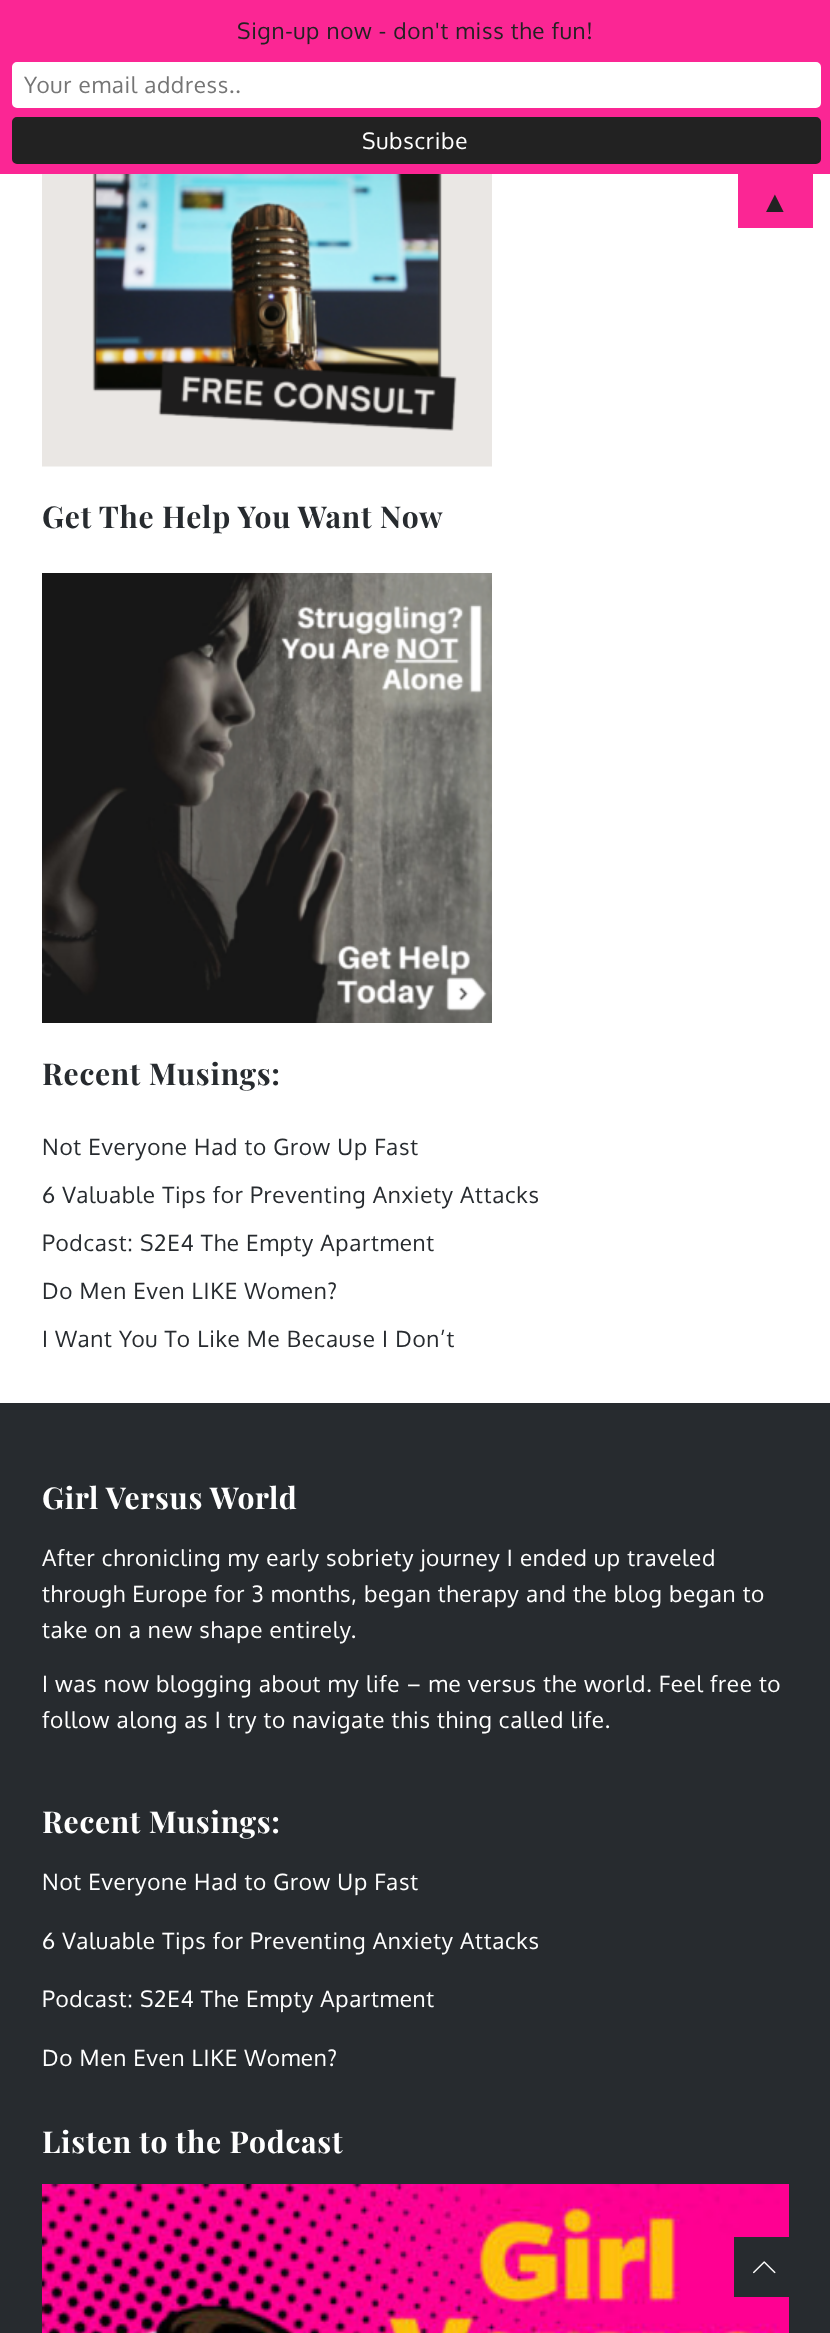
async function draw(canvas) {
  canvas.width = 830;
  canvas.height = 2333;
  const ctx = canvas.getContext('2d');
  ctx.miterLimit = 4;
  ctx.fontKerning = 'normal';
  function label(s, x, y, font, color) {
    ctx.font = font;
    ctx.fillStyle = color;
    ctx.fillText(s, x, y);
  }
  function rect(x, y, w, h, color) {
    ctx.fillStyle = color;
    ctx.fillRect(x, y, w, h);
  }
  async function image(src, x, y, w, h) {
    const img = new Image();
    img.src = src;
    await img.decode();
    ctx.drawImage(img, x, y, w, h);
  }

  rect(0, 0, 830, 2333, '#fff');
  rect(0, 0, 830, 174, '#fb2694');
  ctx.letterSpacing = '0.75px';
  label('Sign-up now - don\'t miss the fun!', 237, 39, '22.5px Oxygen', '#222');
  ctx.fillStyle = '#fff';
  ctx.beginPath();
  ctx.roundRect(13, 63, 807, 44, 4);
  ctx.fill();
  ctx.strokeStyle = '#fff';
  ctx.lineWidth = 2;
  ctx.stroke();
  label('Your email address..', 24, 93, '22.5px Oxygen', '#757575');
  ctx.fillStyle = '#222';
  ctx.beginPath();
  ctx.roundRect(13, 118, 807, 45, 4);
  ctx.fill();
  ctx.strokeStyle = '#222';
  ctx.stroke();
  label('Subscribe', 362, 149, '22.5px Oxygen', '#fff');
  rect(738, 174, 75, 54, '#fb2694');
  label('▲', 760, 212, '30px Liberation Sans', '#222');
  await image('assets/img1.png', 42, 174, 450, 293);
  label('Get The Help You Want Now', 42, 528, 'bold 30px Playfair Display', '#272b2f');
  await image('assets/img2.png', 42, 573, 450, 450);
  label('Recent Musings:', 42, 1085, 'bold 30px Playfair Display', '#272b2f');
  label('Not Everyone Had to Grow Up Fast', 42, 1155, '22.5px Oxygen', '#272b2f');
  label('6 Valuable Tips for Preventing Anxiety Attacks', 42, 1203, '22.5px Oxygen', '#272b2f');
  label('Podcast: S2E4 The Empty Apartment', 42, 1251, '22.5px Oxygen', '#272b2f');
  label('Do Men Even LIKE Women?', 42, 1299, '22.5px Oxygen', '#272b2f');
  label('I Want You To Like Me Because I Don’t', 42, 1347, '22.5px Oxygen', '#272b2f');
  rect(0, 1403, 830, 930, '#272b2f');
  label('Girl Versus World', 42, 1509, 'bold 30px Playfair Display', '#fff');
  label('After chronicling my early sobriety journey I ended up traveled', 42, 1566, '22.5px Oxygen', '#fff');
  label('through Europe for 3 months, began therapy and the blog began to', 42, 1602, '22.5px Oxygen', '#fff');
  label('take on a new shape entirely.', 42, 1638, '22.5px Oxygen', '#fff');
  label('I was now blogging about my life – me versus the world. Feel free to', 42, 1692, '22.5px Oxygen', '#fff');
  label('follow along as I try to navigate this thing called life.', 42, 1728, '22.5px Oxygen', '#fff');
  label('Recent Musings:', 42, 1833, 'bold 30px Playfair Display', '#fff');
  label('Not Everyone Had to Grow Up Fast', 42, 1890, '22.5px Oxygen', '#fff');
  label('6 Valuable Tips for Preventing Anxiety Attacks', 42, 1949, '22.5px Oxygen', '#fff');
  label('Podcast: S2E4 The Empty Apartment', 42, 2007, '22.5px Oxygen', '#fff');
  label('Do Men Even LIKE Women?', 42, 2066, '22.5px Oxygen', '#fff');
  label('Listen to the Podcast', 42, 2153, 'bold 30px Playfair Display', '#fff');
  await image('assets/img3.png', 42, 2184, 747, 149);
  rect(734, 2237, 55, 60, '#272b2f');
  await image('assets/img4.png', 753, 2261, 23, 13);
}

draw(document.querySelector('canvas'));
